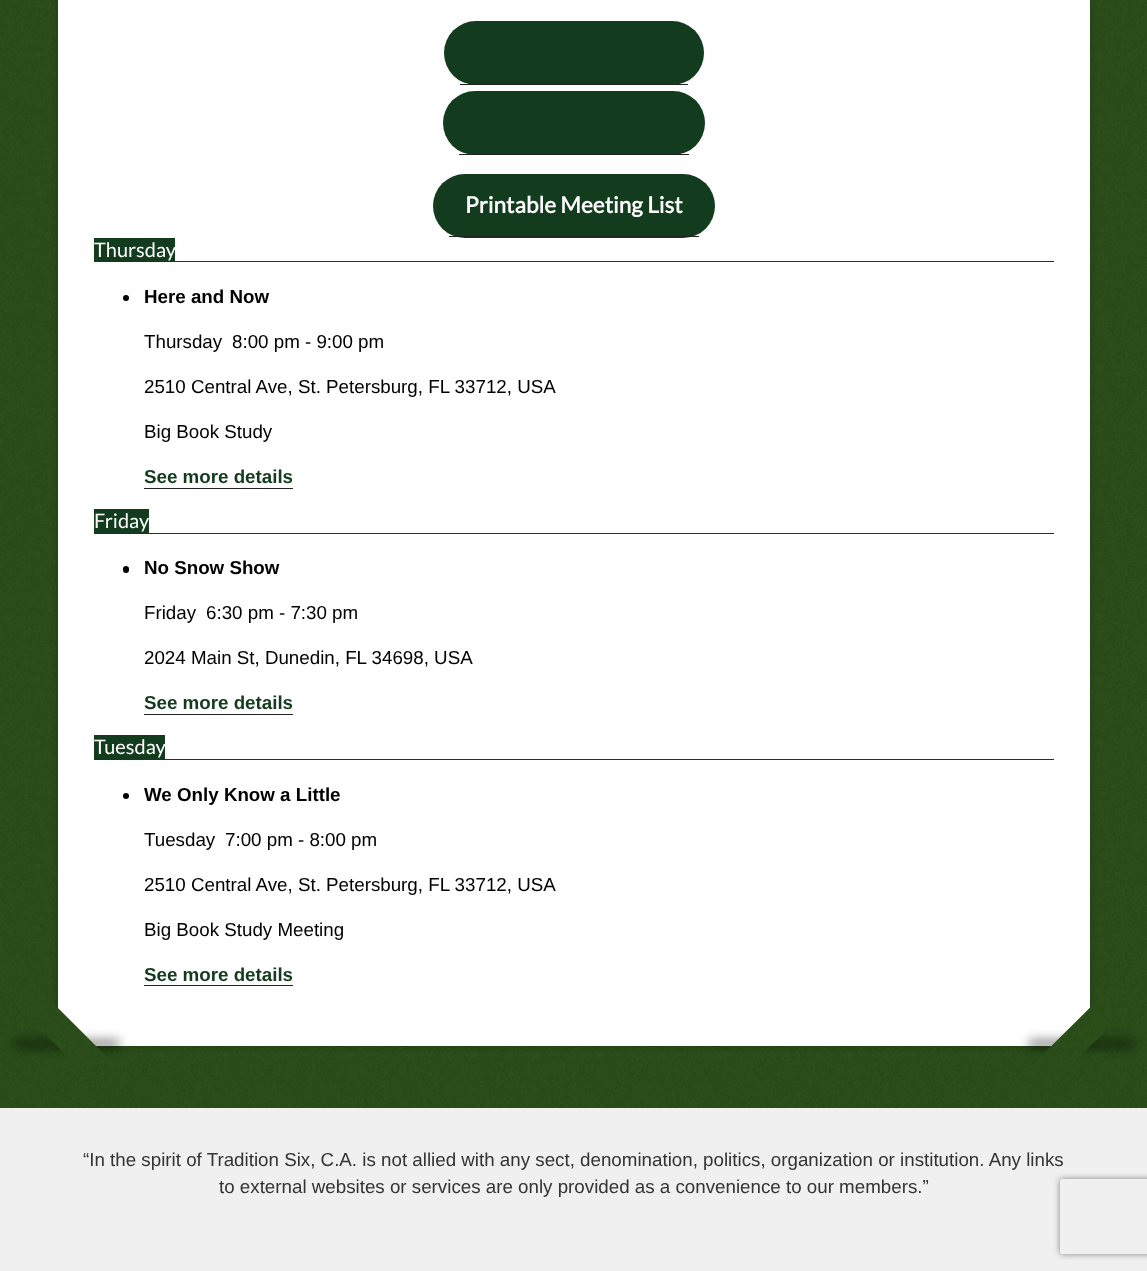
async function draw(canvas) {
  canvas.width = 1147;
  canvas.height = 1271;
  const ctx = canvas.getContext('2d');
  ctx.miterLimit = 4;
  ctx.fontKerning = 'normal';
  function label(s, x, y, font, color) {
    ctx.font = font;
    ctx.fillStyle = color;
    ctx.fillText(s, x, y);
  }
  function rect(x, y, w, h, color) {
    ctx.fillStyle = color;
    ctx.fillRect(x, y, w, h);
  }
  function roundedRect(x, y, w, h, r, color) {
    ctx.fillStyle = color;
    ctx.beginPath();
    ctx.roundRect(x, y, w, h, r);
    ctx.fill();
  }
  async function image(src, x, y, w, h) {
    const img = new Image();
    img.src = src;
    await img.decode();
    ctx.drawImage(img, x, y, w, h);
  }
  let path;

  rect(0, 0, 1147, 1271, '#284c17');
  await image('assets/img1.png', 0, 0, 1147, 1108);
  ctx.fillStyle = '#00000033';
  ctx.filter = 'blur(3px)';
  ctx.beginPath();
  ctx.roundRect(58, -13, 1032, 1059, 4);
  ctx.fill();
  ctx.filter = 'none';
  rect(58, 0, 1032, 1046, '#fff');
  roundedRect(444, 21, 260, 64, 32, '#123c1d');
  rect(460, 84, 228, 1, '#222');
  roundedRect(443, 91, 262, 64, 32, '#123c1d');
  rect(459, 154, 230, 1, '#222');
  roundedRect(433, 174, 282, 64, 32, '#123c1d');
  rect(449, 236, 250, 1, '#222');
  label('Printable Meeting List', 465, 213, 'bold 22.5px Lato', '#fff');
  rect(94, 261, 960, 1, '#123c1d');
  rect(94, 238, 81, 23, '#123c1d');
  label('Thursday', 94, 257, '20px Lato', '#fff');
  ctx.fillStyle = '#000';
  ctx.beginPath();
  ctx.arc(126, 298, 3, 0, 2 * Math.PI);
  ctx.fill();
  label('Here and Now', 144, 303, 'bold 18.75px Liberation Sans', '#000');
  label('Thursday', 144, 348, '18.75px Liberation Sans', '#000');
  label('8:00 pm - 9:00 pm', 232, 348, '18.75px Liberation Sans', '#000');
  label('2510 Central Ave, St. Petersburg, FL 33712, USA', 144, 393, '18.75px Liberation Sans', '#000');
  label('Big Book Study', 144, 438, '18.75px Liberation Sans', '#000');
  label('See more details', 144, 483, 'bold 18.75px Liberation Sans', '#123c1d');
  rect(144, 488, 149, 1, '#222');
  rect(94, 533, 960, 1, '#123c1d');
  rect(94, 509, 55, 24, '#123c1d');
  label('Friday', 94, 528, '20px Lato', '#fff');
  roundedRect(123, 566, 6, 7, 3, '#000');
  label('No Snow Show', 144, 574, 'bold 18.75px Liberation Sans', '#000');
  label('Friday', 144, 619, '18.75px Liberation Sans', '#000');
  label('6:30 pm - 7:30 pm', 206, 619, '18.75px Liberation Sans', '#000');
  label('2024 Main St, Dunedin, FL 34698, USA', 144, 664, '18.75px Liberation Sans', '#000');
  label('See more details', 144, 709, 'bold 18.75px Liberation Sans', '#123c1d');
  rect(144, 714, 149, 1, '#222');
  rect(94, 759, 960, 1, '#123c1d');
  rect(94, 735, 71, 24, '#123c1d');
  label('Tuesday', 94, 754, '20px Lato', '#fff');
  ctx.fillStyle = '#000';
  ctx.beginPath();
  ctx.arc(126, 796, 3, 0, 2 * Math.PI);
  ctx.fill();
  label('We Only Know a Little', 144, 801, 'bold 18.75px Liberation Sans', '#000');
  label('Tuesday', 144, 846, '18.75px Liberation Sans', '#000');
  label('7:00 pm - 8:00 pm', 225, 846, '18.75px Liberation Sans', '#000');
  label('2510 Central Ave, St. Petersburg, FL 33712, USA', 144, 891, '18.75px Liberation Sans', '#000');
  label('Big Book Study Meeting', 144, 936, '18.75px Liberation Sans', '#000');
  label('See more details', 144, 981, 'bold 18.75px Liberation Sans', '#123c1d');
  rect(144, 985, 149, 1, '#222');
  ctx.fillStyle = '#00000080';
  ctx.filter = 'blur(5.5px)';
  ctx.beginPath();
  ctx.rect(14, 1040, 105, 8);
  ctx.fill();
  ctx.filter = 'none';
  ctx.fillStyle = '#284c17';
  path = new Path2D('M101 1090L12 1001L32 982L120 1070Z');
  ctx.fill(path);
  await image('assets/img2.png', 14, 983, 102, 105);
  ctx.fillStyle = '#00000080';
  ctx.filter = 'blur(5.5px)';
  ctx.beginPath();
  ctx.rect(1029, 1040, 105, 8);
  ctx.fill();
  ctx.filter = 'none';
  ctx.fillStyle = '#284c17';
  path = new Path2D('M1135 1001L1047 1090L1027 1070L1116 982Z');
  ctx.fill(path);
  await image('assets/img3.png', 1029, 986, 105, 102);
  rect(0, 1108, 1147, 163, '#f0f0f0');
  label('“In the spirit of Tradition Six, C.A. is not allied with any sect, denomination, politics, organization or institution. Any links', 83, 1166, '18.75px Liberation Sans', '#333');
  label('to external websites or services are only provided as a convenience to our members.”', 219, 1193, '18.75px Liberation Sans', '#333');
  ctx.save();
  path = new Path2D('M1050 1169H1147V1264H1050ZM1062.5 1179H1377.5C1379 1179 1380 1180 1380 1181.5V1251.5C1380 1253 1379 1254 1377.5 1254H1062.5C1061 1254 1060 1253 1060 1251.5V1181.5C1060 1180 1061 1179 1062.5 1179Z');
  ctx.clip(path, 'evenodd');
  ctx.fillStyle = '#808080';
  ctx.filter = 'blur(3px)';
  ctx.beginPath();
  ctx.roundRect(1060, 1179, 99, 75, 2.5);
  ctx.fill();
  ctx.filter = 'none';
  ctx.restore();
}

draw(document.querySelector('canvas'));
